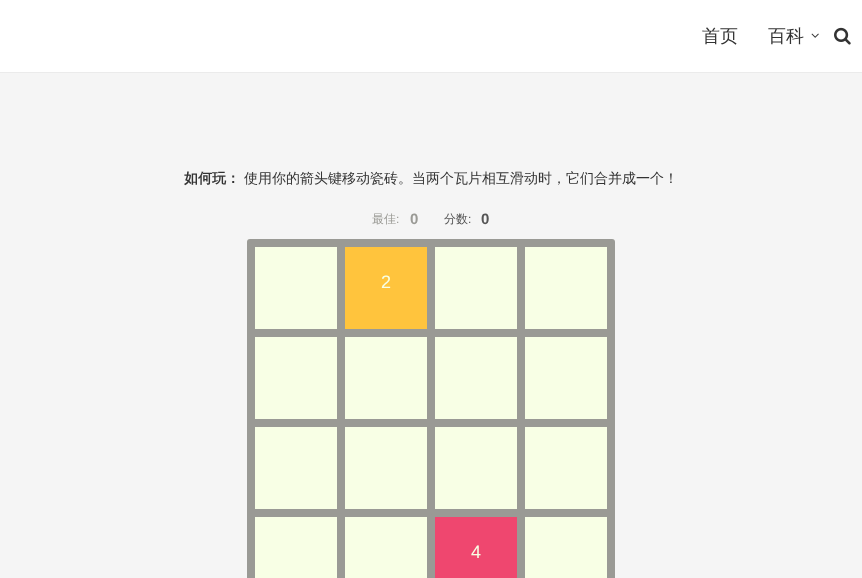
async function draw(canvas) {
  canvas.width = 862;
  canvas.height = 578;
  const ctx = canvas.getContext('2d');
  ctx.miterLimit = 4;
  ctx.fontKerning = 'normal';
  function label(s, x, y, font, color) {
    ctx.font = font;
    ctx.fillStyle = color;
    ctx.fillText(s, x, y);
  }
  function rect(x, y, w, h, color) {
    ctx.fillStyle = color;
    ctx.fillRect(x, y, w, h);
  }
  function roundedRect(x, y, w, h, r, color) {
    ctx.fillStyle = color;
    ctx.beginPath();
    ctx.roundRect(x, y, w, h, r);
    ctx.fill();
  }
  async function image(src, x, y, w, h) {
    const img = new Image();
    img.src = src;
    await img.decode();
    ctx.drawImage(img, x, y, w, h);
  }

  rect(0, 0, 862, 578, '#f5f5f5');
  rect(0, 0, 862, 72, '#fff');
  rect(0, 72, 862, 1, '#ebebeb');
  label('首页', 702, 42, '500 18px WenQuanYi Zen Hei', '#333');
  label('百科', 768, 42, '500 18px WenQuanYi Zen Hei', '#333');
  await image('assets/img1.png', 811, 33, 8, 5);
  await image('assets/img2.png', 834, 27, 17, 18);
  label('如何玩：', 184, 183, 'bold 14px WenQuanYi Zen Hei', '#333');
  label('使用你的箭头键移动瓷砖。当两个瓦片相互滑动时，它们合并成一个！', 244, 183, '500 14px WenQuanYi Zen Hei', '#333');
  label('最佳', 372, 223, '500 12px WenQuanYi Zen Hei', '#9a9a95');
  label(':', 396, 223, '12px Liberation Sans', '#9a9a95');
  label('0', 410, 224, 'bold 15px Liberation Sans', '#9a9a95');
  label('分数', 444, 223, '500 12px WenQuanYi Zen Hei', '#555');
  label(':', 468, 223, '12px Liberation Sans', '#555');
  label('0', 481, 224, 'bold 15px Liberation Sans', '#555');
  roundedRect(247, 239, 368, 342, 3, '#9a9a95');
  rect(255, 247, 82, 82, '#f8ffe5');
  ctx.fillStyle = '#ffc43d';
  ctx.beginPath();
  ctx.roundRect(343, 245, 86, 86, 1);
  ctx.fill();
  ctx.strokeStyle = '#9a9a95';
  ctx.lineWidth = 4;
  ctx.stroke();
  label('2', 381, 288, '18px Liberation Sans', '#f8ffe5');
  rect(435, 247, 82, 82, '#f8ffe5');
  rect(525, 247, 82, 82, '#f8ffe5');
  rect(255, 337, 82, 82, '#f8ffe5');
  rect(345, 337, 82, 82, '#f8ffe5');
  rect(435, 337, 82, 82, '#f8ffe5');
  rect(525, 337, 82, 82, '#f8ffe5');
  rect(255, 427, 82, 82, '#f8ffe5');
  rect(345, 427, 82, 82, '#f8ffe5');
  rect(435, 427, 82, 82, '#f8ffe5');
  rect(525, 427, 82, 82, '#f8ffe5');
  rect(255, 517, 82, 61, '#f8ffe5');
  rect(345, 517, 82, 61, '#f8ffe5');
  ctx.fillStyle = '#ef476f';
  ctx.beginPath();
  ctx.roundRect(433, 515, 86, 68, 1);
  ctx.fill();
  ctx.stroke();
  label('4', 471, 558, '18px Liberation Sans', '#f8ffe5');
  rect(525, 517, 82, 61, '#f8ffe5');
}

draw(document.querySelector('canvas'));
